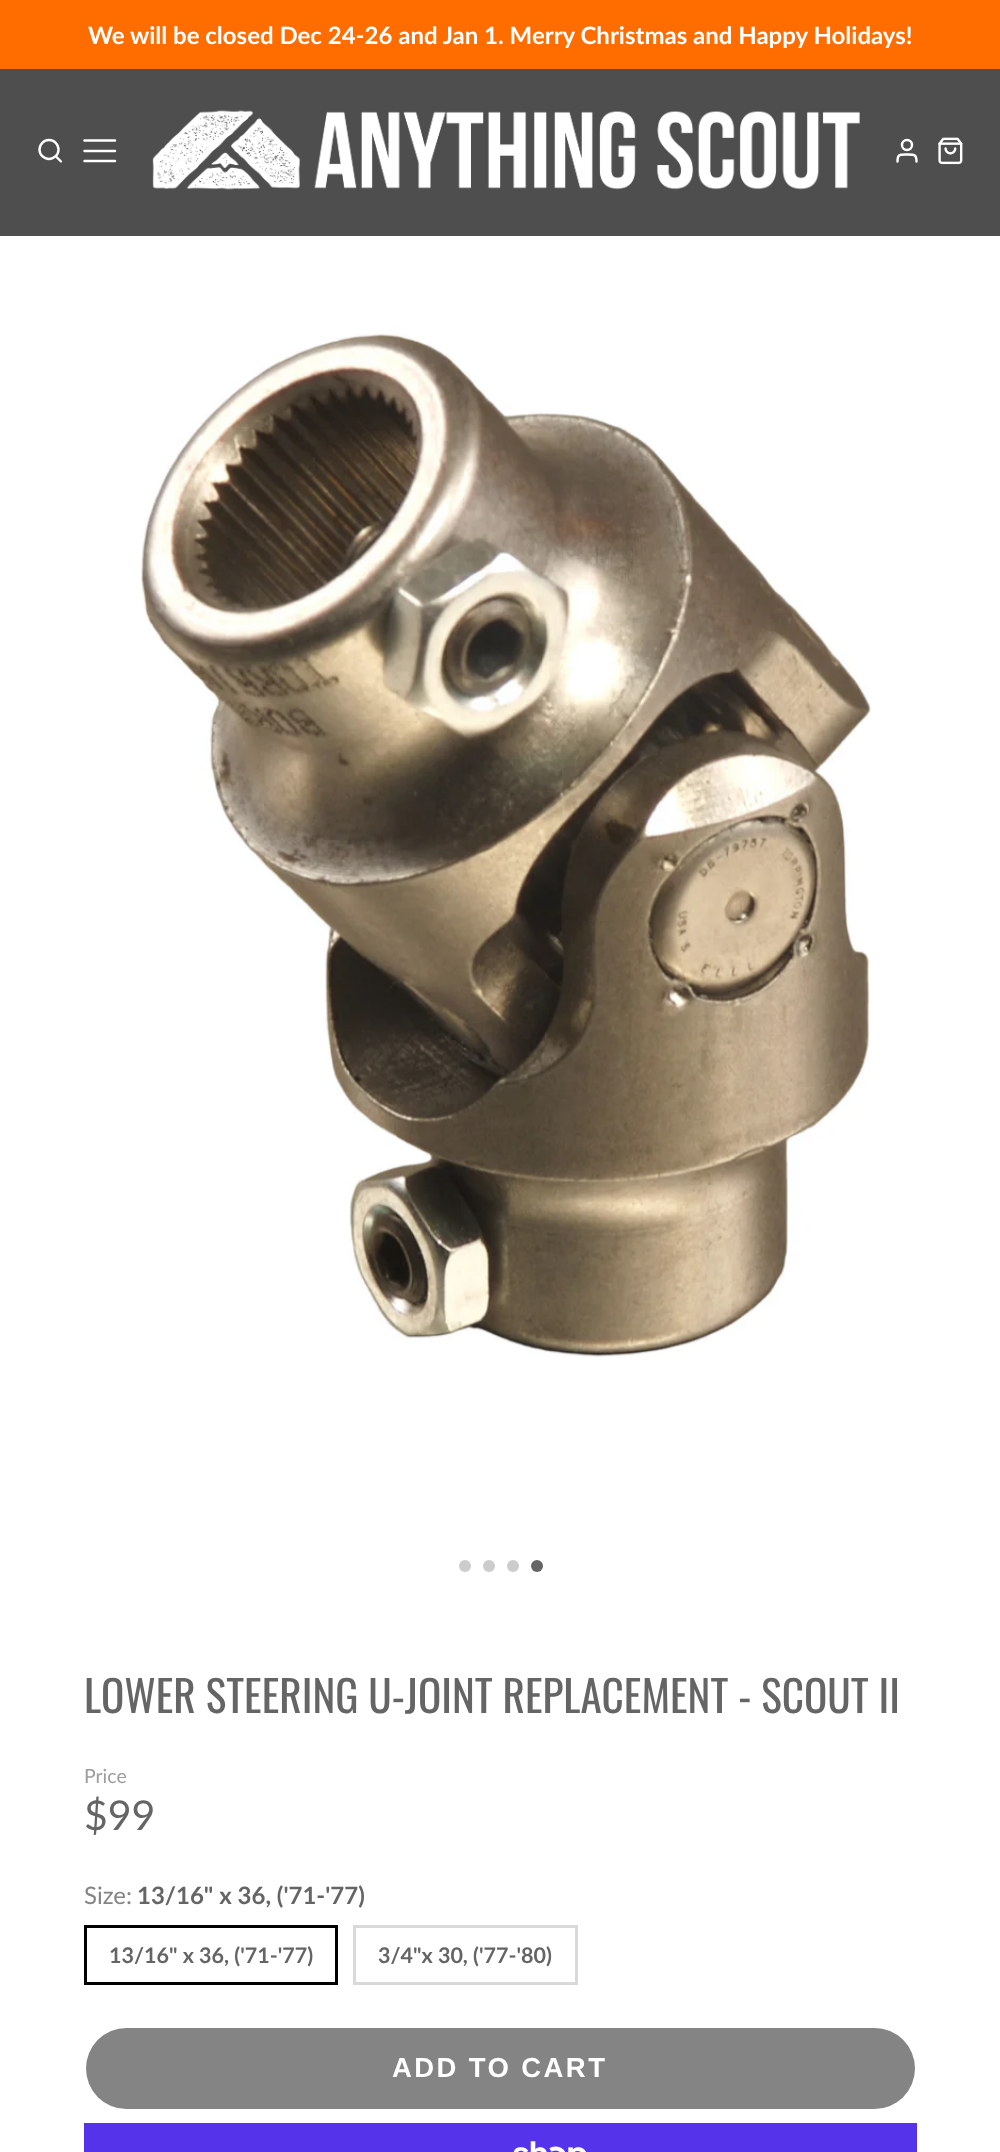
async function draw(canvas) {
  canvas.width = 1000;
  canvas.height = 2152;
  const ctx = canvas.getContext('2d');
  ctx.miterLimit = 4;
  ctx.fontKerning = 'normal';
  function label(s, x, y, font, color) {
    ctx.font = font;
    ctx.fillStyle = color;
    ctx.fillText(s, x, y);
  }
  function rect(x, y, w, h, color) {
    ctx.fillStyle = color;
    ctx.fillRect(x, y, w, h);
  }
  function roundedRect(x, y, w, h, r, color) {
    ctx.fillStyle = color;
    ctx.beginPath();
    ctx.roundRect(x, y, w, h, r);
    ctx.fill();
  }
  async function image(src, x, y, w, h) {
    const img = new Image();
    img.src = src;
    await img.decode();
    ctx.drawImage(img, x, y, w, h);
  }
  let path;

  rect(0, 0, 1000, 2152, '#fff');
  rect(0, 0, 1000, 69, '#ff6c00');
  label('We will be closed Dec 24-26 and Jan 1. Merry Christmas and Happy Holidays!', 88, 44, 'bold 24px Lato', '#fff');
  rect(0, 69, 1000, 167, '#4e4e4e');
  ctx.beginPath();
  ctx.arc(49, 149.5, 9.5, 0, 2 * Math.PI);
  ctx.strokeStyle = '#fff';
  ctx.lineWidth = 2.4;
  ctx.stroke();
  path = new Path2D('M61 161.5L56 156.5');
  ctx.lineCap = 'round';
  ctx.lineJoin = 'round';
  ctx.stroke(path);
  path = new Path2D('M84.5 151H115M84.5 140.5H115M84.5 161H115');
  ctx.lineWidth = 2.5;
  ctx.stroke(path);
  await image('assets/img1.png', 152, 110, 708, 80);
  ctx.beginPath();
  ctx.arc(907, 145, 5, 0, 2 * Math.PI);
  ctx.lineWidth = 2.4;
  ctx.stroke();
  path = new Path2D('M916.5 161.5C916.5 154 913.5 154.5 907 154.5C900 154.5 897.5 154 897.5 161.5');
  ctx.stroke(path);
  await image('assets/img2.png', 938, 137, 25, 28);
  await image('assets/img3.png', 141, 334, 730, 1024);
  ctx.fillStyle = '#ccc';
  ctx.beginPath();
  ctx.arc(465, 1566, 6, 0, 2 * Math.PI);
  ctx.fill();
  ctx.beginPath();
  ctx.arc(489, 1566, 6, 0, 2 * Math.PI);
  ctx.fill();
  ctx.beginPath();
  ctx.arc(513, 1566, 6, 0, 2 * Math.PI);
  ctx.fill();
  ctx.fillStyle = '#666565';
  ctx.beginPath();
  ctx.arc(537, 1566, 6, 0, 2 * Math.PI);
  ctx.fill();
  label('LOWER STEERING U-JOINT REPLACEMENT - SCOUT II', 84, 1713, '43.25px Oswald', '#666565');
  label('Price', 84, 1783, '19.5px Lato', '#9d9c9c');
  label('$99', 84, 1830, '41px Lato', '#666565');
  label('Size:', 84, 1904, '24px Lato', '#858484');
  label('13/16" x 36, (\'71-\'77)', 137, 1904, 'bold 24px Lato', '#666565');
  ctx.strokeStyle = '#000';
  ctx.lineWidth = 3;
  ctx.lineJoin = 'miter';
  ctx.strokeRect(85.5, 1926.5, 251, 57);
  label('13/16" x 36, (\'71-\'77)', 109, 1963, 'bold 21.5px Lato', '#666565');
  ctx.strokeStyle = '#d9d9d9';
  ctx.strokeRect(354.5, 1926.5, 222, 57);
  label('3/4"x 30, (\'77-\'80)', 378, 1963, 'bold 21.5px Lato', '#666565');
  roundedRect(86, 2028, 829, 81, 40.5, '#858484');
  ctx.letterSpacing = '2.4px';
  label('ADD TO CART', 392, 2077, 'bold 27.5px Liberation Sans', '#fff');
  rect(84, 2123, 833, 29, '#5433eb');
  await image('assets/img4.png', 513, 2141, 73, 11);
}

draw(document.querySelector('canvas'));
